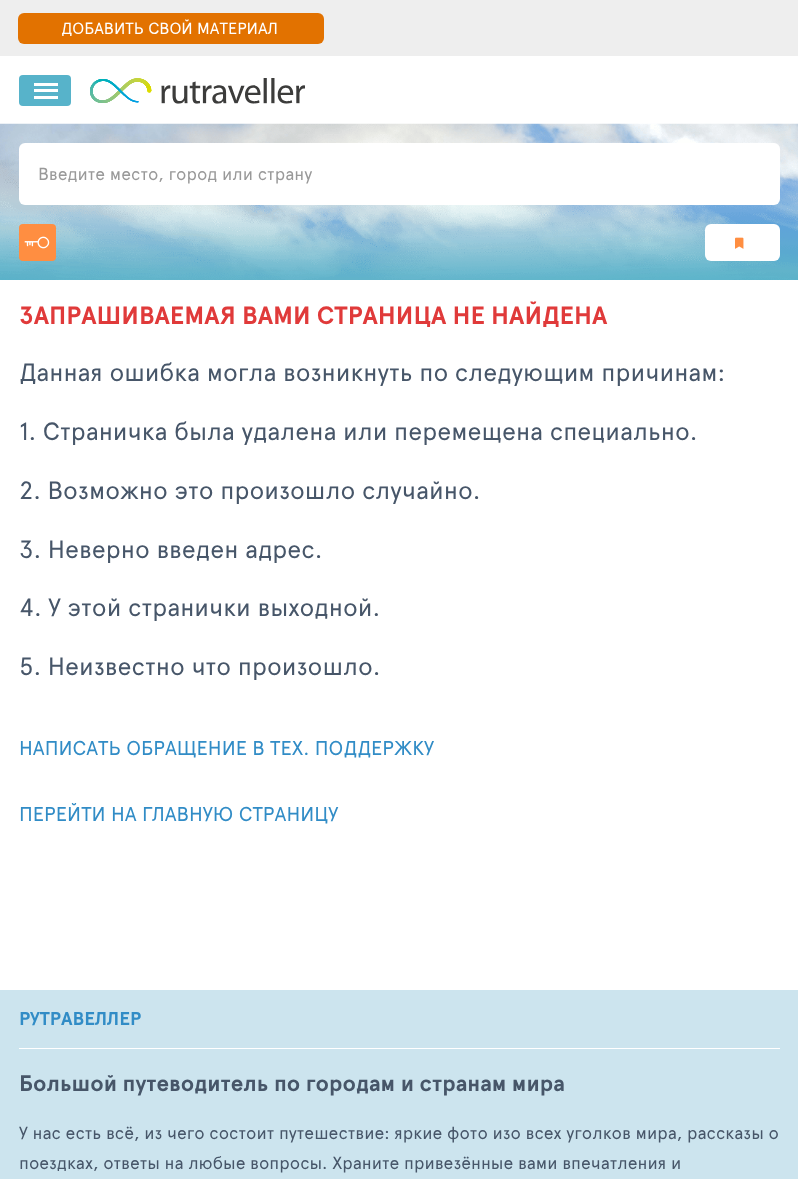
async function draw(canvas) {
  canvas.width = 798;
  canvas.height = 1179;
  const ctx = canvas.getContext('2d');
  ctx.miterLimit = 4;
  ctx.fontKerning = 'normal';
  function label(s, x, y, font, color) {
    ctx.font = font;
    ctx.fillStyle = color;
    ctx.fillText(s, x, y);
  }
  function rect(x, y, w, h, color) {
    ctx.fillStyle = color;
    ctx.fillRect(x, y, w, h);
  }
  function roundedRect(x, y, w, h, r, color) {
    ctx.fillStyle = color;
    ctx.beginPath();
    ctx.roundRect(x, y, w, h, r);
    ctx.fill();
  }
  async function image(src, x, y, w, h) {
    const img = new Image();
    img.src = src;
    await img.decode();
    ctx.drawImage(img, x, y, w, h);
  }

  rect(0, 0, 798, 1179, '#fff');
  rect(0, 0, 798, 56, '#eee');
  roundedRect(18, 13, 306, 31, 6, '#e27200');
  label('ДОБАВИТЬ СВОЙ МАТЕРИАЛ', 61, 34, '16.25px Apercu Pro', '#fff');
  roundedRect(19, 75, 52, 31, 4, '#57b3ca');
  rect(34, 83, 24, 3, '#fff');
  rect(34, 89, 24, 3, '#fff');
  rect(34, 96, 24, 3, '#fff');
  await image('assets/img1.png', 90, 78, 215, 26);
  rect(0, 124, 798, 156, '#53b3cb');
  await image('assets/img2.png', 0, 123, 798, 157);
  roundedRect(19, 143, 761, 62, 6, '#fff');
  label('Введите место, город или страну', 38, 180, '17.5px Apercu Pro', '#999');
  roundedRect(705, 224, 75, 37, 6, '#fff');
  await image('assets/img3.png', 735, 237, 9, 12);
  roundedRect(19, 224, 37, 37, 4, '#ff8e41');
  await image('assets/img4.png', 24, 236, 26, 13);
  label('ЗАПРАШИВАЕМАЯ ВАМИ СТРАНИЦА НЕ НАЙДЕНА', 19, 324, 'bold 25px Apercu Pro', '#e03a3a');
  label('Данная ошибка могла возникнуть по следующим причинам:', 19, 381, '25px Apercu Pro', '#475669');
  label('1. Страничка была удалена или перемещена специально.', 19, 440, '25px Apercu Pro', '#475669');
  label('2. Возможно это произошло случайно.', 19, 499, '25px Apercu Pro', '#475669');
  label('3. Неверно введен адрес.', 19, 558, '25px Apercu Pro', '#475669');
  label('4. У этой странички выходной.', 19, 616, '25px Apercu Pro', '#475669');
  label('5. Неизвестно что произошло.', 19, 675, '25px Apercu Pro', '#475669');
  label('НАПИСАТЬ ОБРАЩЕНИЕ В ТЕХ. ПОДДЕРЖКУ', 19, 755, '20px Apercu Pro', '#318cc6');
  label('ПЕРЕЙТИ НА ГЛАВНУЮ СТРАНИЦУ', 19, 821, '20px Apercu Pro', '#318cc6');
  rect(0, 990, 798, 189, '#cce4ee');
  label('РУТРАВЕЛЛЕР', 19, 1025, 'bold 18.75px Apercu Pro', '#318cc6');
  rect(19, 1048, 761, 1, '#fff');
  label('Большой путеводитель по городам и странам мира', 19, 1091, 'bold 22.5px Apercu Pro', '#475669');
  label('У нас есть всё, из чего состоит путешествие: яркие фото изо всех уголков мира, рассказы о', 19, 1139, '17.5px Apercu Pro', '#475669');
  label('поездках, ответы на любые вопросы. Храните привезённые вами впечатления и', 19, 1169, '17.5px Apercu Pro', '#475669');
}

draw(document.querySelector('canvas'));
